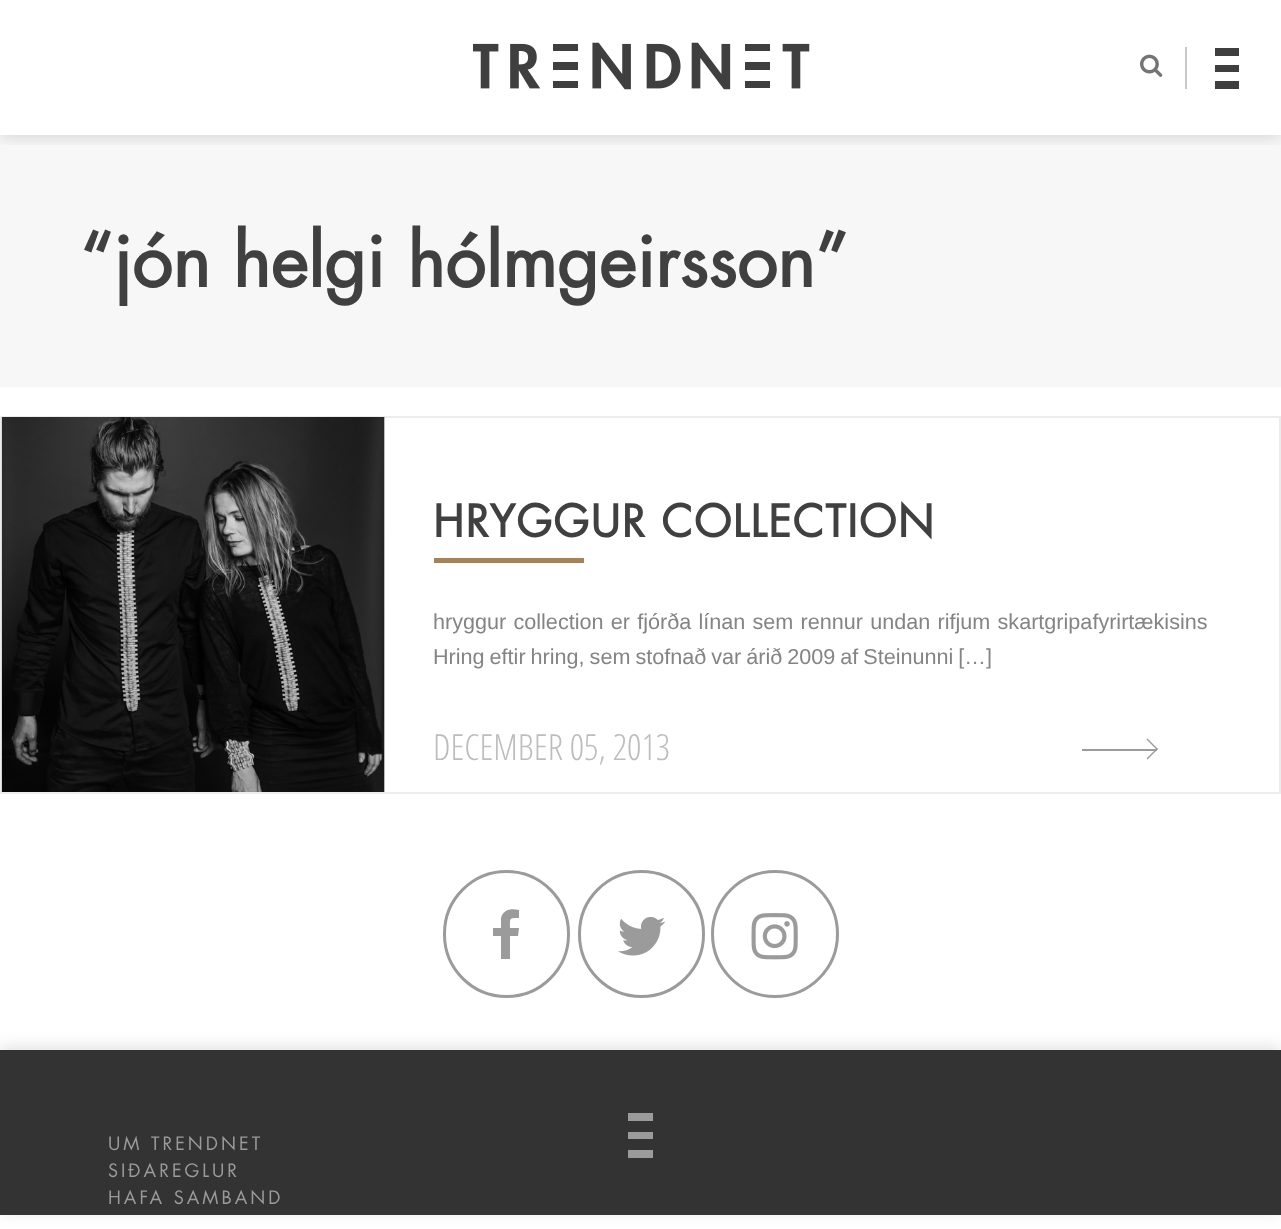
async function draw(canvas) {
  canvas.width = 1281;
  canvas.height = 1229;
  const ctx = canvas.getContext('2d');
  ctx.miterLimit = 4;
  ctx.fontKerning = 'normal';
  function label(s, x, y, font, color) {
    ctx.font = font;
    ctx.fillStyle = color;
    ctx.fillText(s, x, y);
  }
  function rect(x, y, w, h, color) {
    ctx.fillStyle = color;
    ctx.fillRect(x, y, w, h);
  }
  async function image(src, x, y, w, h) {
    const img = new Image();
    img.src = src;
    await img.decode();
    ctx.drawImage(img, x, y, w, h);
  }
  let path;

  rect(0, 0, 1281, 1229, '#fff');
  rect(0, 135, 1281, 252, '#f7f7f7');
  ctx.save();
  ctx.beginPath();
  ctx.rect(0, 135, 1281, 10);
  ctx.clip();
  ctx.fillStyle = '#0000001f';
  ctx.filter = 'blur(7.5px)';
  ctx.beginPath();
  ctx.rect(0, 3, 1281, 135);
  ctx.fill();
  ctx.filter = 'none';
  ctx.restore();
  await image('assets/img1.png', 473, 42, 337, 48);
  await image('assets/img2.png', 1140, 54, 23, 23);
  rect(1185, 47, 2, 42, '#c9c9c9');
  rect(1215, 48, 24, 8, '#3f3f3f');
  rect(1215, 65, 24, 7, '#3f3f3f');
  rect(1215, 81, 24, 8, '#3f3f3f');
  label('“jón helgi hólmgeirsson”', 80, 287, 'bold 72px Futura', '#404040');
  ctx.strokeStyle = '#ececec';
  ctx.lineWidth = 2;
  ctx.strokeRect(1, 417, 1279, 376);
  await image('assets/img3.png', 1, 417, 384, 375);
  ctx.letterSpacing = '1.5px';
  label('HRYGGUR COLLECTION', 433, 537, 'bold 43.25px Futura', '#404040');
  rect(434, 558, 150, 5, '#a68254');
  ctx.letterSpacing = '0px';
  ctx.wordSpacing = '1.25px';
  label('hryggur collection er fjórða línan sem rennur undan rifjum skartgripafyrirtækisins', 433, 629, '21.6px Liberation Sans', '#848484');
  ctx.wordSpacing = '-1px';
  label('Hring eftir hring, sem stofnað var árið 2009 af Steinunni […]', 433, 664, '21.6px Liberation Sans', '#848484');
  ctx.wordSpacing = '0px';
  label('DECEMBER 05, 2013', 433, 760, '300 36px Open Sans Condensed', '#bdbdbd');
  rect(1082, 749, 75, 2, '#9b9b9b');
  path = new Path2D('M1147.5 738.5L1158 749L1157 750L1146.5 739.5Z');
  ctx.fill(path);
  path = new Path2D('M1157 748L1158 749L1147.5 759.5L1146.5 758.5Z');
  ctx.fill(path);
  ctx.beginPath();
  ctx.roundRect(444.5, 871.5, 124, 125, 62);
  ctx.strokeStyle = '#9b9b9b';
  ctx.lineWidth = 3;
  ctx.stroke();
  path = new Path2D('M519 910V918C509 918 510 918 510 928H519L518 936H510V959H501V936H493V928H501V918C503 909 512 908 519 910Z');
  ctx.fill(path);
  ctx.beginPath();
  ctx.roundRect(579.5, 871.5, 124, 125, 62);
  ctx.stroke();
  await image('assets/img4.png', 618, 916, 48, 40);
  ctx.beginPath();
  ctx.arc(775, 934, 62.5, 0, 2 * Math.PI);
  ctx.stroke();
  await image('assets/img5.png', 751, 913, 47, 47);
  ctx.fillStyle = '#0000001f';
  ctx.filter = 'blur(7.5px)';
  ctx.beginPath();
  ctx.rect(0, 1047, 1281, 165);
  ctx.fill();
  ctx.filter = 'none';
  rect(0, 1050, 1281, 165, '#333');
  ctx.letterSpacing = '3px';
  label('UM TRENDNET', 108, 1150, '18px Futura', '#9b9b9b');
  label('SIÐAREGLUR', 108, 1177, '18px Futura', '#9b9b9b');
  label('HAFA SAMBAND', 108, 1204, '18px Futura', '#9b9b9b');
  rect(628, 1113, 25, 8, '#9b9b9b');
  rect(628, 1132, 25, 7, '#9b9b9b');
  rect(628, 1150, 25, 8, '#9b9b9b');
}

draw(document.querySelector('canvas'));
